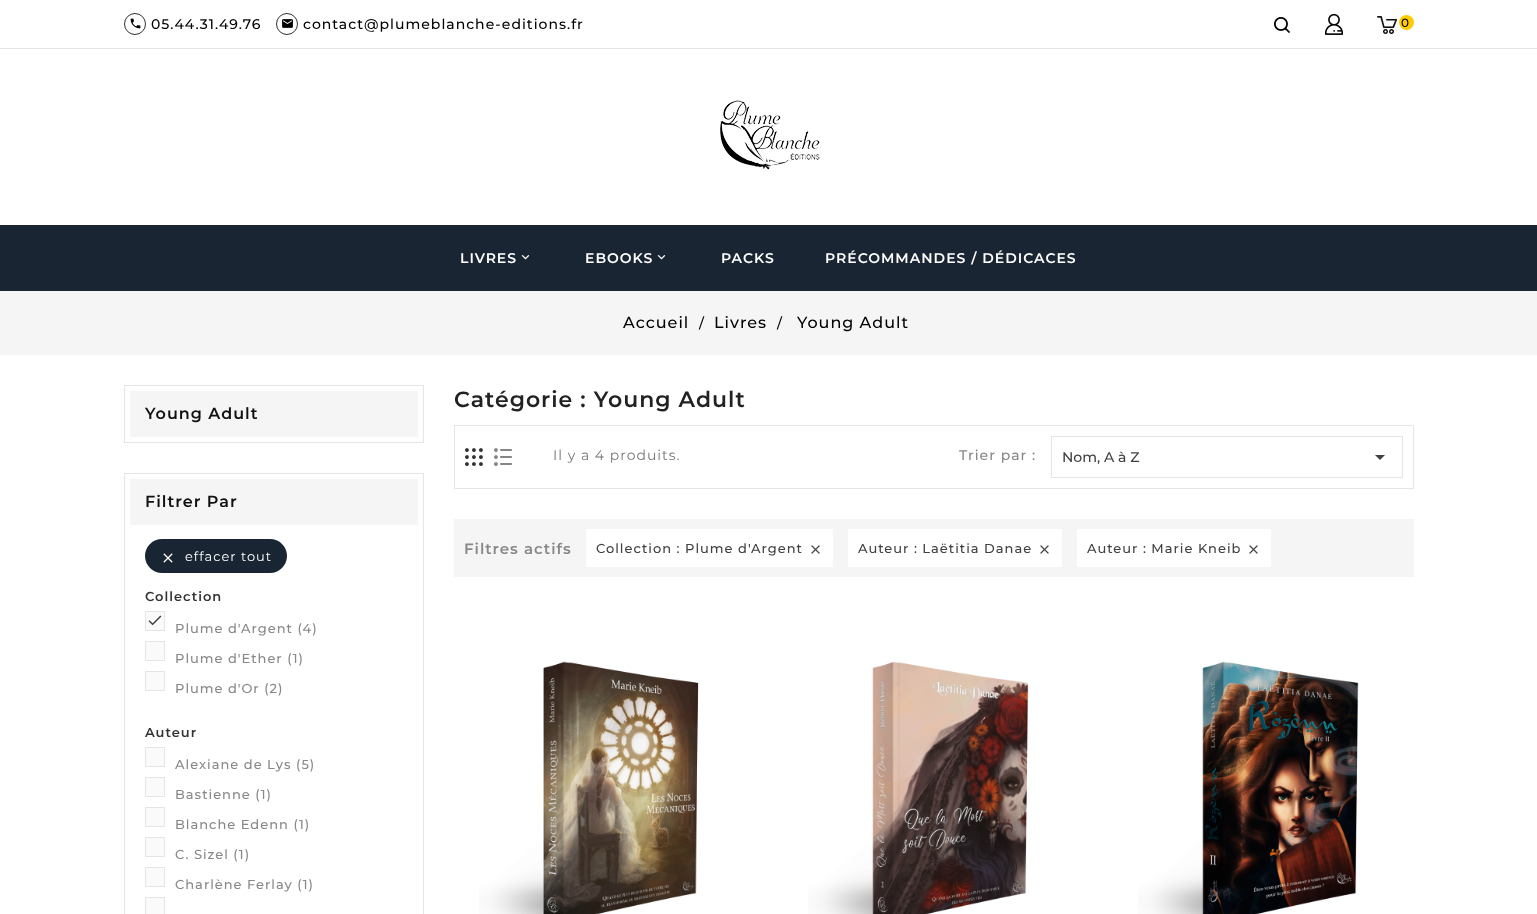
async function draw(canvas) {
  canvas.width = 1537;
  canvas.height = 914;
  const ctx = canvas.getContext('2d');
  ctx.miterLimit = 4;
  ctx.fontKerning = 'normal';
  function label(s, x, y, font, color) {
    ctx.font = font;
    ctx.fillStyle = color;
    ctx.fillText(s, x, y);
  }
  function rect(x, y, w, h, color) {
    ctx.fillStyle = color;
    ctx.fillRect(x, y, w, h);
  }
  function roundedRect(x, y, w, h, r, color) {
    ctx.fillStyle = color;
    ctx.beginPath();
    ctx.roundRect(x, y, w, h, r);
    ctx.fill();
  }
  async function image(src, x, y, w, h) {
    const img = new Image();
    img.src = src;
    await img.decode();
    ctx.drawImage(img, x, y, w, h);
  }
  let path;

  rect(0, 0, 1537, 914, '#fff');
  rect(0, 48, 1537, 1, '#e5e5e5');
  ctx.beginPath();
  ctx.arc(135, 24, 10.5, 0, 2 * Math.PI);
  ctx.strokeStyle = '#333';
  ctx.stroke();
  await image('assets/img1.png', 130, 18, 11, 11);
  ctx.letterSpacing = '1px';
  label('05.44.31.49.76', 151, 29, '500 14px Montserrat', '#000');
  ctx.beginPath();
  ctx.arc(287, 24, 10.5, 0, 2 * Math.PI);
  ctx.stroke();
  await image('assets/img2.png', 282, 19, 11, 9);
  label('contact@plumeblanche-editions.fr', 303, 29, '500 14px Montserrat', '#000');
  await image('assets/img3.png', 1274, 17, 16, 16);
  await image('assets/img4.png', 1325, 13, 18, 22);
  await image('assets/img5.png', 1377, 16, 20, 18);
  ctx.fillStyle = '#ffcc01';
  ctx.beginPath();
  ctx.arc(1406.5, 22.5, 7.5, 0, 2 * Math.PI);
  ctx.fill();
  label('0', 1401, 27, '500 12px Montserrat', '#000');
  await image('assets/img6.png', 720, 100, 100, 70);
  rect(0, 225, 1537, 66, '#192532');
  label('LIVRES', 460, 263, '600 14px Montserrat', '#fff');
  await image('assets/img7.png', 521, 255, 9, 5);
  label('EBOOKS', 585, 263, '600 14px Montserrat', '#fff');
  await image('assets/img7.png', 657, 255, 9, 5);
  label('PACKS', 721, 263, '600 14px Montserrat', '#fff');
  label('PRÉCOMMANDES / DÉDICACES', 825, 263, '600 14px Montserrat', '#fff');
  rect(0, 291, 1537, 64, '#f5f5f5');
  label('Accueil', 623, 328, '500 16px Montserrat', '#000');
  label('/', 699, 328, '500 14px Montserrat', '#000');
  label('Livres', 714, 328, '500 16px Montserrat', '#000');
  label('/', 777, 328, '500 14px Montserrat', '#000');
  label('Young Adult', 797, 328, '500 16px Montserrat', '#000');
  ctx.strokeStyle = '#e5e5e5';
  ctx.strokeRect(124.5, 385.5, 299, 57);
  rect(130, 391, 288, 46, '#f5f5f5');
  label('Young Adult', 145, 419, '600 16px Montserrat', '#111');
  ctx.strokeRect(124.5, 473.5, 299, 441);
  rect(130, 479, 288, 46, '#f5f5f5');
  label('Filtrer Par', 145, 507, '600 16px Montserrat', '#111');
  roundedRect(145, 539, 142, 34, 17, '#192532');
  await image('assets/img8.png', 163, 553, 10, 10);
  label('effacer tout', 185, 561, '13px Montserrat', '#fff');
  label('Collection', 145, 601, '600 13px Montserrat', '#333');
  ctx.fillStyle = '#fafafa';
  ctx.beginPath();
  ctx.rect(145.5, 611.5, 19, 19);
  ctx.fill();
  ctx.stroke();
  await image('assets/img9.png', 148, 615, 14, 11);
  label('Plume d\'Argent (4)', 175, 633, '500 13px Montserrat', '#888');
  ctx.fillStyle = '#fafafa';
  ctx.beginPath();
  ctx.rect(145.5, 641.5, 19, 19);
  ctx.fill();
  ctx.stroke();
  label('Plume d\'Ether (1)', 175, 663, '500 13px Montserrat', '#888');
  ctx.fillStyle = '#fafafa';
  ctx.beginPath();
  ctx.rect(145.5, 671.5, 19, 19);
  ctx.fill();
  ctx.stroke();
  label('Plume d\'Or (2)', 175, 693, '500 13px Montserrat', '#888');
  label('Auteur', 145, 737, '600 13px Montserrat', '#333');
  ctx.fillStyle = '#fafafa';
  ctx.beginPath();
  ctx.rect(145.5, 747.5, 19, 19);
  ctx.fill();
  ctx.stroke();
  label('Alexiane de Lys (5)', 175, 769, '500 13px Montserrat', '#888');
  ctx.fillStyle = '#fafafa';
  ctx.beginPath();
  ctx.rect(145.5, 777.5, 19, 19);
  ctx.fill();
  ctx.stroke();
  label('Bastienne (1)', 175, 799, '500 13px Montserrat', '#888');
  ctx.fillStyle = '#fafafa';
  ctx.beginPath();
  ctx.rect(145.5, 807.5, 19, 19);
  ctx.fill();
  ctx.stroke();
  label('Blanche Edenn (1)', 175, 829, '500 13px Montserrat', '#888');
  ctx.fillStyle = '#fafafa';
  ctx.beginPath();
  ctx.rect(145.5, 837.5, 19, 19);
  ctx.fill();
  ctx.stroke();
  label('C. Sizel (1)', 175, 859, '500 13px Montserrat', '#888');
  ctx.fillStyle = '#fafafa';
  ctx.beginPath();
  ctx.rect(145.5, 867.5, 19, 19);
  ctx.fill();
  ctx.stroke();
  label('Charlène Ferlay (1)', 175, 889, '500 13px Montserrat', '#888');
  ctx.fillStyle = '#fafafa';
  ctx.beginPath();
  ctx.rect(145.5, 897.5, 19, 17);
  ctx.fill();
  ctx.stroke();
  label('Catégorie : Young Adult', 454, 407, '600 22px Montserrat', '#222');
  ctx.strokeRect(454.5, 425.5, 959, 63);
  await image('assets/img10.png', 465, 448, 18, 18);
  await image('assets/img11.png', 494, 448, 18, 18);
  label('Il y a 4 produits.', 553, 460, '14px Montserrat', '#777');
  label('Trier par :', 959, 460, '500 14px Montserrat', '#888');
  ctx.strokeRect(1051.5, 436.5, 351, 41);
  ctx.letterSpacing = '0px';
  label('Nom, A à Z', 1062, 462, '500 14px Montserrat', '#414141');
  path = new Path2D('M1375 455H1385L1380 460Z');
  ctx.fill(path);
  rect(454, 519, 960, 58, '#f5f5f5');
  ctx.letterSpacing = '1px';
  label('Filtres actifs', 464, 554, '600 15px Montserrat', '#888');
  rect(586, 529, 247, 38, '#fff');
  label('Collection : Plume d\'Argent', 596, 553, '500 13px Montserrat', '#414141');
  await image('assets/img12.png', 811, 545, 9, 9);
  rect(848, 529, 214, 38, '#fff');
  label('Auteur : Laëtitia Danae', 858, 553, '500 13px Montserrat', '#414141');
  await image('assets/img12.png', 1040, 545, 9, 9);
  rect(1077, 529, 194, 38, '#fff');
  label('Auteur : Marie Kneib', 1087, 553, '500 13px Montserrat', '#414141');
  await image('assets/img12.png', 1249, 545, 9, 9);
  await image('assets/img13.png', 479, 661, 220, 253);
  await image('assets/img14.png', 808, 661, 221, 253);
  await image('assets/img15.png', 1138, 661, 221, 253);
}

draw(document.querySelector('canvas'));
